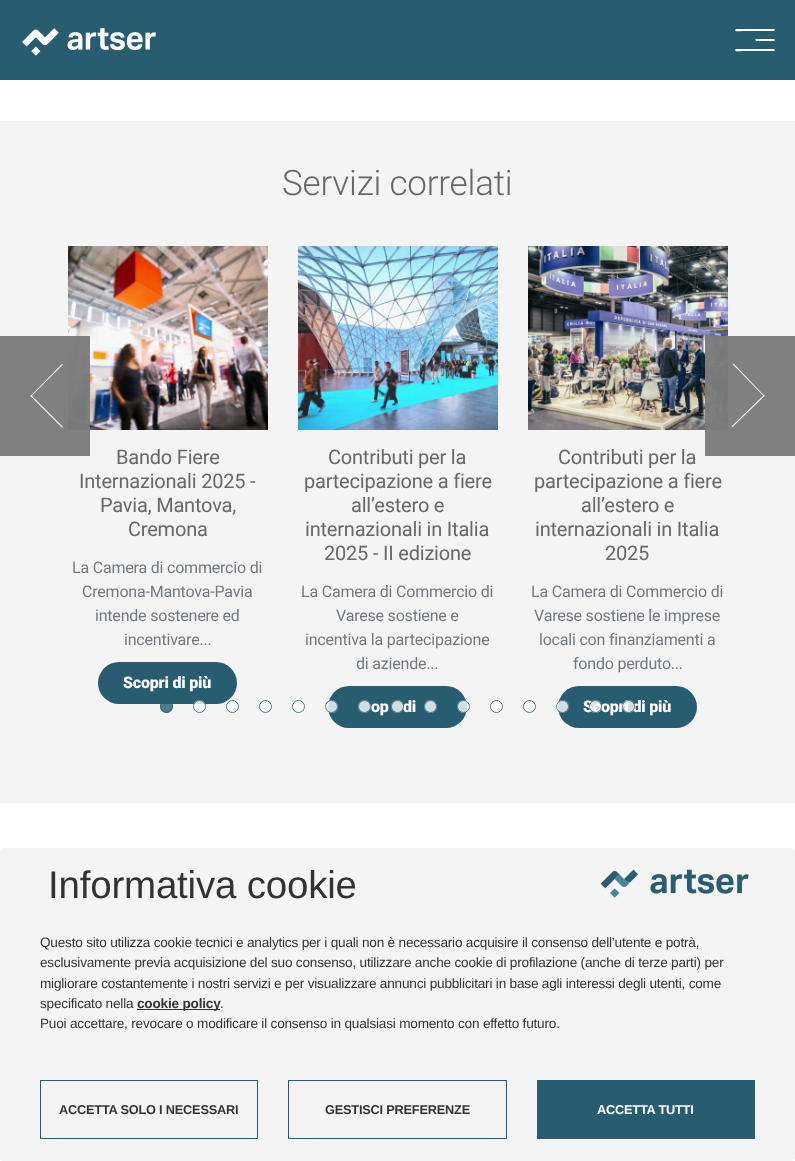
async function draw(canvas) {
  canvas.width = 795;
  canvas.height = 1161;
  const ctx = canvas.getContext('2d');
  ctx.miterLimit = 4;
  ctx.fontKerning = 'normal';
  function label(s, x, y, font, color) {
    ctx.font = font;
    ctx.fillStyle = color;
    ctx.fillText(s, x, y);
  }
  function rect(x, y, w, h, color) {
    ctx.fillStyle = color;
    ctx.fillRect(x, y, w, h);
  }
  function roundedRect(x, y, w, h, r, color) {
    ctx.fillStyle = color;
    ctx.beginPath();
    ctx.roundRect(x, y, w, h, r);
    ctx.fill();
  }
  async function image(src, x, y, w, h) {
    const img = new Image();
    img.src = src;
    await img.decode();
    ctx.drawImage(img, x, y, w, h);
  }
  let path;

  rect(0, 0, 795, 1161, '#fff');
  rect(0, 0, 795, 80, '#285c71');
  await image('assets/img1.png', 22, 28, 134, 28);
  ctx.fillStyle = '#fff';
  path = new Path2D('M774 39C772 39 756 38.5 755.5 39.5C753.5 41 757 41 759 41H774.5C775 40.5 775 40 774.5 39.5ZM774 29H736L735 30C735 32 739 31 742 31H774C775 31 775 29 774 29ZM774 49H736L735 50C735 52 739 51 742 51H774C775 51 775 49 774 49Z');
  ctx.fill(path);
  rect(0, 121, 795, 682, '#f4f4f4');
  ctx.letterSpacing = '-0.2px';
  label('Servizi correlati', 282, 195, '300 35px Roboto', '#686868');
  await image('assets/img2.png', 68, 246, 200, 184);
  rect(0, 336, 90, 120, '#7c7c7cf7');
  ctx.fillStyle = '#fff';
  path = new Path2D('M30.5 396L62 364L63 364.5L31 396.5Z');
  ctx.fill(path);
  path = new Path2D('M30.5 396L31 395L63 427L62 427.5Z');
  ctx.fill(path);
  await image('assets/img4.png', 528, 246, 200, 184);
  rect(705, 336, 90, 120, '#7c7c7cf7');
  ctx.fillStyle = '#fff';
  path = new Path2D('M764.5 396L732.5 427L731.5 426.5L764 395Z');
  ctx.fill(path);
  path = new Path2D('M764.5 396L764 396.5L732.5 364L733.5 363.5Z');
  ctx.fill(path);
  label('Bando Fiere', 116, 464, '20px Roboto', '#686868');
  label('Internazionali 2025 -', 79, 488, '20px Roboto', '#686868');
  label('Pavia, Mantova,', 100, 512, '20px Roboto', '#686868');
  label('Cremona', 128, 536, '20px Roboto', '#686868');
  label('La Camera di commercio di', 72, 573, '16px Roboto', '#74797e');
  label('Cremona-Mantova-Pavia', 82, 597, '16px Roboto', '#74797e');
  label('intende sostenere ed', 95, 621, '16px Roboto', '#74797e');
  label('incentivare...', 124, 645, '16px Roboto', '#74797e');
  roundedRect(98, 662, 139, 42, 21, '#285c71');
  label('Scopri di più', 123, 688, '900 16px Roboto', '#fff');
  await image('assets/img3.png', 298, 246, 200, 184);
  label('Contributi per la', 328, 464, '20px Roboto', '#686868');
  label('partecipazione a fiere', 304, 488, '20px Roboto', '#686868');
  label('all’estero e', 351, 512, '20px Roboto', '#686868');
  label('internazionali in Italia', 305, 536, '20px Roboto', '#686868');
  label('2025 - II edizione', 324, 560, '20px Roboto', '#686868');
  label('La Camera di Commercio di', 301, 597, '16px Roboto', '#74797e');
  label('Varese sostiene e', 336, 621, '16px Roboto', '#74797e');
  label('incentiva la partecipazione', 305, 645, '16px Roboto', '#74797e');
  label('di aziende...', 356, 669, '16px Roboto', '#74797e');
  roundedRect(328, 686, 139, 42, 21, '#285c71');
  label('op', 371, 712, '900 16px Roboto', '#fff');
  label('di', 403, 712, '900 16px Roboto', '#fff');
  label('Contributi per la', 558, 464, '20px Roboto', '#686868');
  label('partecipazione a fiere', 534, 488, '20px Roboto', '#686868');
  label('all’estero e', 581, 512, '20px Roboto', '#686868');
  label('internazionali in Italia', 535, 536, '20px Roboto', '#686868');
  label('2025', 605, 560, '20px Roboto', '#686868');
  label('La Camera di Commercio di', 531, 597, '16px Roboto', '#74797e');
  label('Varese sostiene le imprese', 534, 621, '16px Roboto', '#74797e');
  label('locali con finanziamenti a', 539, 645, '16px Roboto', '#74797e');
  label('fondo perduto...', 573, 669, '16px Roboto', '#74797e');
  roundedRect(558, 686, 139, 42, 21, '#285c71');
  label('Scopri di più', 583, 712, '900 16px Roboto', '#fff');
  ctx.fillStyle = '#285c71cc';
  ctx.beginPath();
  ctx.arc(166.5, 706.5, 6.5, 0, 2 * Math.PI);
  ctx.fill();
  ctx.beginPath();
  ctx.arc(166.5, 706.5, 6, 0, 2 * Math.PI);
  ctx.strokeStyle = '#285c71cc';
  ctx.stroke();
  ctx.fillStyle = '#ffffffcc';
  ctx.beginPath();
  ctx.arc(199.5, 706.5, 6.5, 0, 2 * Math.PI);
  ctx.fill();
  ctx.beginPath();
  ctx.arc(199.5, 706.5, 6, 0, 2 * Math.PI);
  ctx.stroke();
  ctx.fillStyle = '#fdfdfd';
  ctx.beginPath();
  ctx.arc(232.5, 706.5, 6, 0, 2 * Math.PI);
  ctx.fill();
  ctx.strokeStyle = '#517a8b';
  ctx.stroke();
  ctx.beginPath();
  ctx.arc(265.5, 706.5, 6, 0, 2 * Math.PI);
  ctx.fill();
  ctx.stroke();
  ctx.beginPath();
  ctx.arc(298.5, 706.5, 6, 0, 2 * Math.PI);
  ctx.fill();
  ctx.stroke();
  ctx.fillStyle = '#ffffffcc';
  ctx.beginPath();
  ctx.arc(331.5, 706.5, 6.5, 0, 2 * Math.PI);
  ctx.fill();
  ctx.beginPath();
  ctx.arc(331.5, 706.5, 6, 0, 2 * Math.PI);
  ctx.strokeStyle = '#285c71cc';
  ctx.stroke();
  ctx.beginPath();
  ctx.arc(364.5, 706.5, 6.5, 0, 2 * Math.PI);
  ctx.fill();
  ctx.beginPath();
  ctx.arc(364.5, 706.5, 6, 0, 2 * Math.PI);
  ctx.stroke();
  ctx.beginPath();
  ctx.arc(397.5, 706.5, 6.5, 0, 2 * Math.PI);
  ctx.fill();
  ctx.beginPath();
  ctx.arc(397.5, 706.5, 6, 0, 2 * Math.PI);
  ctx.stroke();
  ctx.beginPath();
  ctx.arc(430.5, 706.5, 6.5, 0, 2 * Math.PI);
  ctx.fill();
  ctx.beginPath();
  ctx.arc(430.5, 706.5, 6, 0, 2 * Math.PI);
  ctx.stroke();
  ctx.beginPath();
  ctx.arc(463.5, 706.5, 6.5, 0, 2 * Math.PI);
  ctx.fill();
  ctx.beginPath();
  ctx.arc(463.5, 706.5, 6, 0, 2 * Math.PI);
  ctx.stroke();
  ctx.fillStyle = '#fdfdfd';
  ctx.beginPath();
  ctx.arc(496.5, 706.5, 6, 0, 2 * Math.PI);
  ctx.fill();
  ctx.strokeStyle = '#517a8b';
  ctx.stroke();
  ctx.beginPath();
  ctx.arc(529.5, 706.5, 6, 0, 2 * Math.PI);
  ctx.fill();
  ctx.stroke();
  ctx.fillStyle = '#ffffffcc';
  ctx.beginPath();
  ctx.arc(562.5, 706.5, 6.5, 0, 2 * Math.PI);
  ctx.fill();
  ctx.beginPath();
  ctx.arc(562.5, 706.5, 6, 0, 2 * Math.PI);
  ctx.strokeStyle = '#285c71cc';
  ctx.stroke();
  ctx.beginPath();
  ctx.arc(595.5, 706.5, 6.5, 0, 2 * Math.PI);
  ctx.fill();
  ctx.beginPath();
  ctx.arc(595.5, 706.5, 6, 0, 2 * Math.PI);
  ctx.stroke();
  ctx.beginPath();
  ctx.arc(628.5, 706.5, 6.5, 0, 2 * Math.PI);
  ctx.fill();
  ctx.beginPath();
  ctx.arc(628.5, 706.5, 6, 0, 2 * Math.PI);
  ctx.stroke();
  roundedRect(0, 848, 795, 313, 4, '#f4f4f4');
  label('Informativa cookie', 48, 898, '38.5px Liberation Sans', '#333');
  await image('assets/img5.png', 600, 869, 149, 29);
  label('Questo sito utilizza cookie tecnici e analytics per i quali non è necessario acquisire il consenso dell’utente e potrà,', 40, 947, '13.6px Liberation Sans', '#333');
  label('esclusivamente previa acquisizione del suo consenso, utilizzare anche cookie di profilazione (anche di terze parti) per', 40, 967, '13.6px Liberation Sans', '#333');
  label('migliorare costantemente i nostri servizi e per visualizzare annunci pubblicitari in base agli interessi degli utenti, come', 40, 988, '13.6px Liberation Sans', '#333');
  label('specificato nella', 40, 1008, '13.6px Liberation Sans', '#333');
  rect(137, 1009, 83, 1, '#333');
  label('cookie policy', 137, 1008, 'bold 13.6px Liberation Sans', '#333');
  label('.', 220, 1008, '13.6px Liberation Sans', '#333');
  label('Puoi accettare, revocare o modificare il consenso in qualsiasi momento con effetto futuro.', 40, 1028, '13.6px Liberation Sans', '#333');
  ctx.strokeStyle = '#285c71';
  ctx.strokeRect(40.5, 1080.5, 217, 58);
  label('ACCETTA SOLO I NECESSARI', 59, 1114, 'bold 12.75px Liberation Sans', '#333');
  ctx.strokeRect(288.5, 1080.5, 218, 58);
  label('GESTISCI PREFERENZE', 325, 1114, 'bold 12.75px Liberation Sans', '#333');
  rect(537, 1080, 218, 59, '#285c71');
  label('ACCETTA TUTTI', 597, 1114, 'bold 12.75px Liberation Sans', '#fff');
}

draw(document.querySelector('canvas'));
